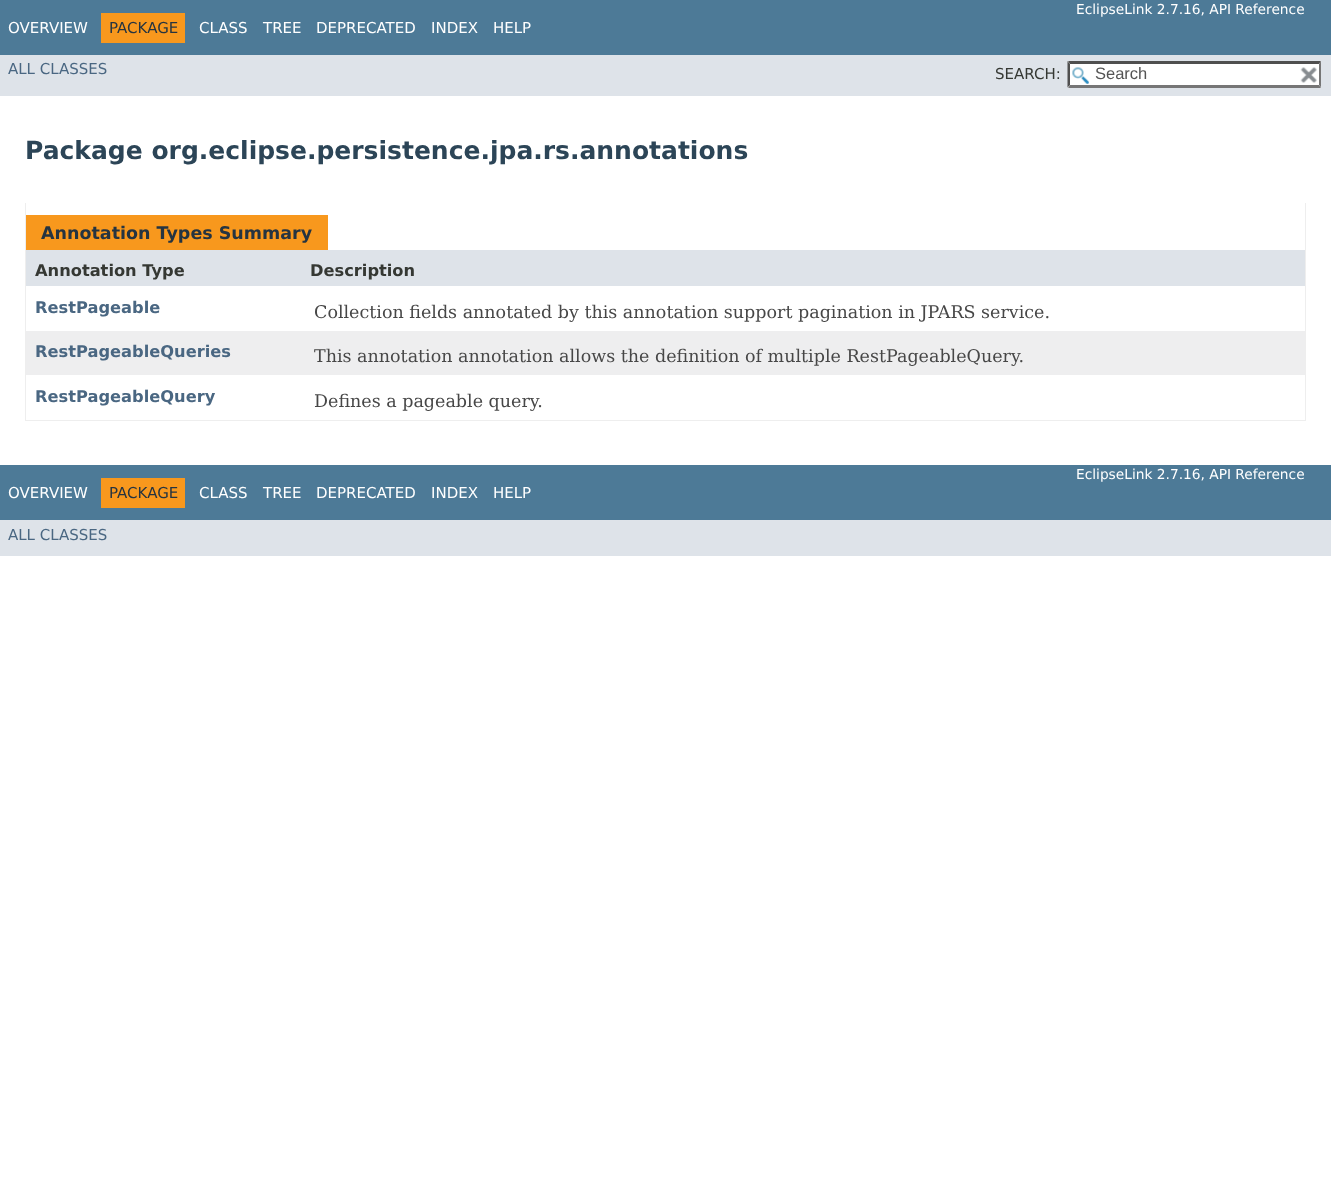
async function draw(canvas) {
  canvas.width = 1331;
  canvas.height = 1181;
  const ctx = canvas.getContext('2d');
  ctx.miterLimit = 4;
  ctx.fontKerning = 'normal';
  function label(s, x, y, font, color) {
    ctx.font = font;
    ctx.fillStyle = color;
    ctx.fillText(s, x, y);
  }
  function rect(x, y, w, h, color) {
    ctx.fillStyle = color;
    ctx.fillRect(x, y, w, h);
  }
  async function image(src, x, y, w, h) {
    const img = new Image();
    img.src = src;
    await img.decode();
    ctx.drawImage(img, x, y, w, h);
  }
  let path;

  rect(0, 0, 1331, 1181, '#fff');
  rect(0, 0, 1331, 55, '#4d7a97');
  label('EclipseLink 2.7.16, API Reference', 1076, 14, '13.75px DejaVu Sans', '#fff');
  label('OVERVIEW', 8, 33, '15px DejaVu Sans', '#fff');
  rect(101, 13, 84, 30, '#f8981d');
  label('PACKAGE', 109, 33, '15px DejaVu Sans', '#253441');
  label('CLASS', 199, 33, '15px DejaVu Sans', '#fff');
  label('TREE', 263, 33, '15px DejaVu Sans', '#fff');
  label('DEPRECATED', 316, 33, '15px DejaVu Sans', '#fff');
  label('INDEX', 431, 33, '15px DejaVu Sans', '#fff');
  label('HELP', 493, 33, '15px DejaVu Sans', '#fff');
  rect(0, 55, 1331, 41, '#dee3e9');
  label('ALL CLASSES', 8, 74, '15px DejaVu Sans', '#4a6782');
  label('SEARCH:', 995, 79, '15px DejaVu Sans', '#353833');
  rect(1068, 61, 253, 27, '#fff');
  await image('assets/img1.png', 1072, 67, 17, 17);
  ctx.fillStyle = '#4f4f4f';
  path = new Path2D('M1068 61H1321L1319 64H1070Z');
  ctx.fill(path);
  ctx.fillStyle = '#767676';
  path = new Path2D('M1321 61V87.5L1319 85V64Z');
  ctx.fill(path);
  path = new Path2D('M1321 88H1068L1070 85H1319Z');
  ctx.fill(path);
  ctx.fillStyle = '#4f4f4f';
  path = new Path2D('M1067.5 87.5V61L1070 64V85Z');
  ctx.fill(path);
  label('Search', 1095, 79, '16.5px Liberation Sans', '#545454');
  await image('assets/img2.png', 1300, 67, 17, 16);
  label('Package org.eclipse.persistence.jpa.rs.annotations', 25, 159, 'bold 25px DejaVu Sans', '#2c4557');
  rect(1305, 203, 1, 218, '#eee');
  rect(25, 420, 1281, 1, '#eee');
  rect(25, 203, 1, 218, '#eee');
  rect(26, 215, 302, 35, '#f8981d');
  label('Annotation Types Summary', 41, 239, 'bold 17.5px DejaVu Sans', '#253441');
  rect(26, 250, 1279, 36, '#dee3e9');
  label('Annotation Type', 35, 276, 'bold 16.25px DejaVu Sans', '#353833');
  label('Description', 310, 276, 'bold 16.25px DejaVu Sans', '#353833');
  label('RestPageable', 35, 313, 'bold 16.25px DejaVu Sans', '#4a6782');
  label('Collection fields annotated by this annotation support pagination in JPARS service.', 314, 318, '17.5px DejaVu Serif', '#474747');
  rect(26, 331, 1279, 44, '#eeeeef');
  label('RestPageableQueries', 35, 357, 'bold 16.25px DejaVu Sans', '#4a6782');
  label('This annotation annotation allows the definition of multiple RestPageableQuery.', 314, 362, '17.5px DejaVu Serif', '#474747');
  label('RestPageableQuery', 35, 402, 'bold 16.25px DejaVu Sans', '#4a6782');
  label('Defines a pageable query.', 314, 407, '17.5px DejaVu Serif', '#474747');
  rect(0, 465, 1331, 55, '#4d7a97');
  label('EclipseLink 2.7.16, API Reference', 1076, 479, '13.75px DejaVu Sans', '#fff');
  label('OVERVIEW', 8, 498, '15px DejaVu Sans', '#fff');
  rect(101, 478, 84, 30, '#f8981d');
  label('PACKAGE', 109, 498, '15px DejaVu Sans', '#253441');
  label('CLASS', 199, 498, '15px DejaVu Sans', '#fff');
  label('TREE', 263, 498, '15px DejaVu Sans', '#fff');
  label('DEPRECATED', 316, 498, '15px DejaVu Sans', '#fff');
  label('INDEX', 431, 498, '15px DejaVu Sans', '#fff');
  label('HELP', 493, 498, '15px DejaVu Sans', '#fff');
  rect(0, 520, 1331, 36, '#dee3e9');
  label('ALL CLASSES', 8, 540, '15px DejaVu Sans', '#4a6782');
}

draw(document.querySelector('canvas'));
